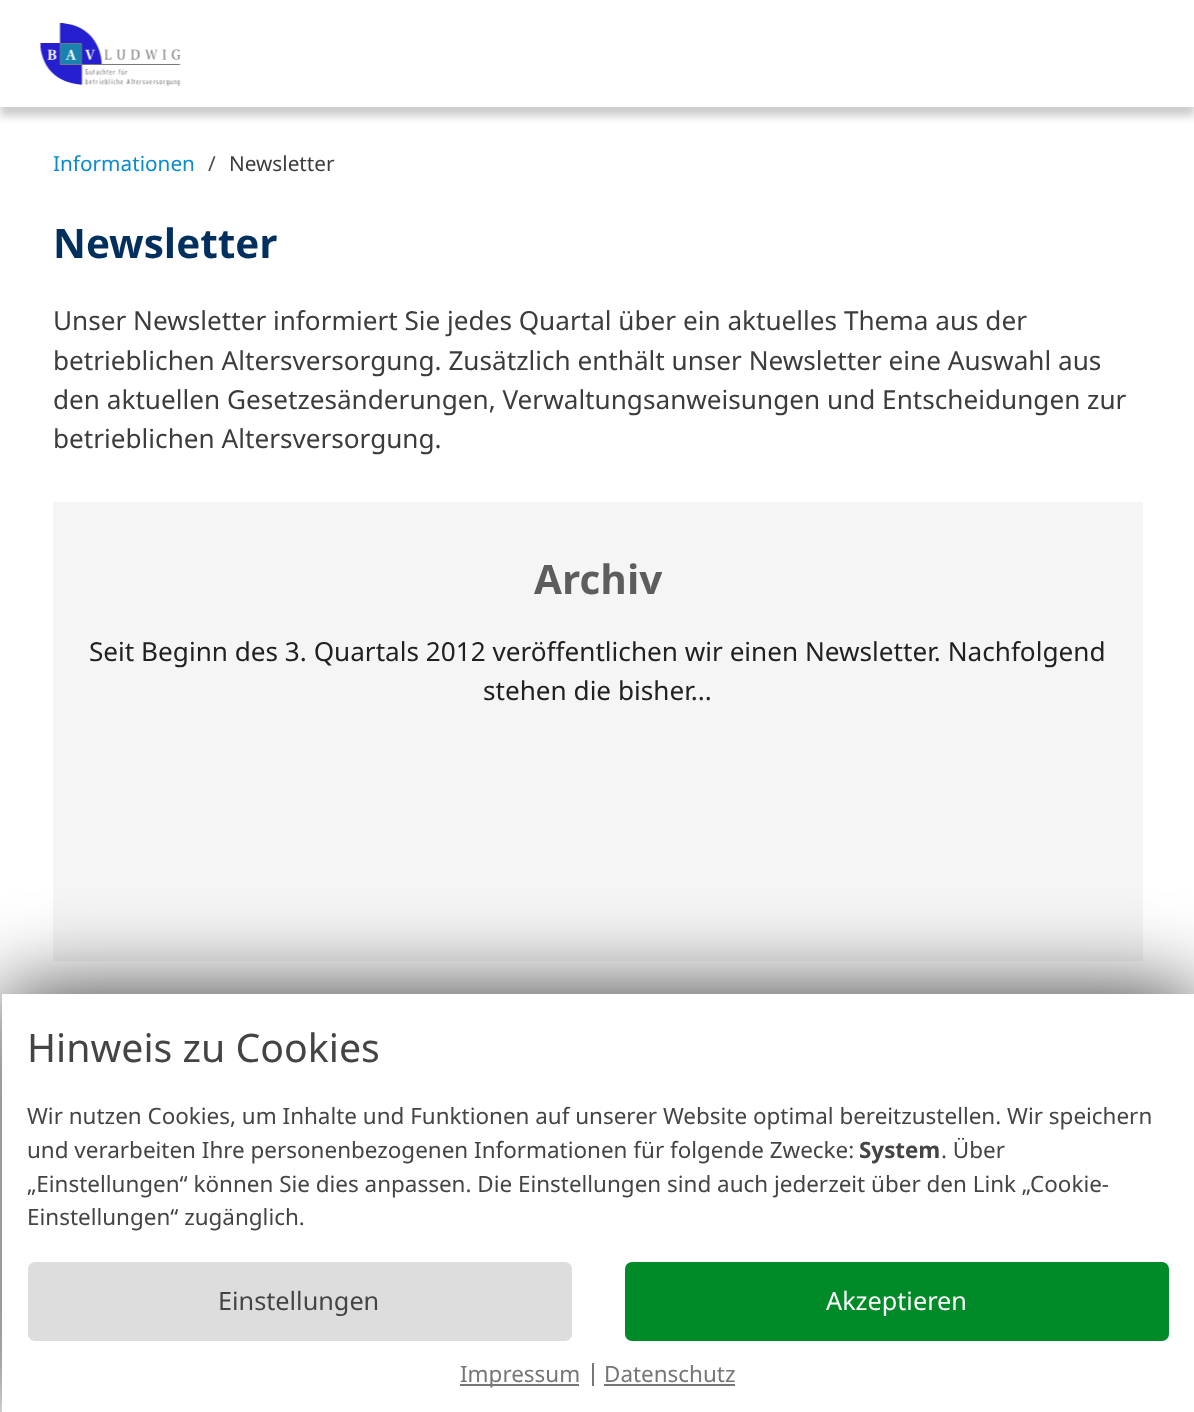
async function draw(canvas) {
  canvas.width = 1194;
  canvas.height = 1412;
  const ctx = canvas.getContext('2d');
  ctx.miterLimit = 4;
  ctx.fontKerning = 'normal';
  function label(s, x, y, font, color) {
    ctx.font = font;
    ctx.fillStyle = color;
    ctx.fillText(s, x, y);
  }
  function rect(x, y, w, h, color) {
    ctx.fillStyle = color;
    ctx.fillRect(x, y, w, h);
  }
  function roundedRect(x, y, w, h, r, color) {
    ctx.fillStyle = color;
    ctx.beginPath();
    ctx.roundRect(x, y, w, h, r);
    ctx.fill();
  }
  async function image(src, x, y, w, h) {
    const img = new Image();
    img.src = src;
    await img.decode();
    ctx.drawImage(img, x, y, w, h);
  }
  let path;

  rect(0, 0, 1194, 1412, '#fff');
  ctx.save();
  path = new Path2D('M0 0H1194V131H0ZM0 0H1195V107H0Z');
  ctx.clip(path, 'evenodd');
  ctx.fillStyle = '#01010133';
  ctx.filter = 'blur(4.5px)';
  ctx.beginPath();
  ctx.rect(0, 9, 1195, 107);
  ctx.fill();
  ctx.filter = 'none';
  ctx.restore();
  await image('assets/img1.png', 40, 23, 141, 63);
  label('Informationen', 53, 171, '20.75px Noto Sans', '#088bcf');
  label('/', 208, 171, '20.75px Noto Sans', '#495057');
  label('Newsletter', 229, 171, '20.75px Noto Sans', '#3c3c3c');
  label('Newsletter', 53, 258, 'bold 40.5px Noto Sans', '#01305e');
  label('Unser Newsletter informiert Sie jedes Quartal über ein aktuelles Thema aus der', 53, 330, '26.15px Noto Sans', '#3c3c3c');
  label('betrieblichen Altersversorgung. Zusätzlich enthält unser Newsletter eine Auswahl aus', 53, 370, '26.15px Noto Sans', '#3c3c3c');
  label('den aktuellen Gesetzesänderungen, Verwaltungsanweisungen und Entscheidungen zur', 53, 409, '26.15px Noto Sans', '#3c3c3c');
  label('betrieblichen Altersversorgung.', 53, 448, '26.15px Noto Sans', '#3c3c3c');
  rect(53, 502, 1090, 459, '#f5f5f5');
  label('Archiv', 534, 594, 'bold 40.5px Noto Sans', '#5d5d5d');
  label('Seit Beginn des 3. Quartals 2012 veröffentlichen wir einen Newsletter. Nachfolgend', 89, 661, '26.15px Noto Sans', '#212121');
  label('stehen die bisher...', 483, 700, '26.15px Noto Sans', '#212121');
  ctx.save();
  path = new Path2D('M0 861H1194V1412H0ZM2 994H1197V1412H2Z');
  ctx.clip(path, 'evenodd');
  ctx.fillStyle = '#000000cc';
  ctx.filter = 'blur(44px)';
  ctx.beginPath();
  ctx.rect(2, 994, 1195, 418);
  ctx.fill();
  ctx.filter = 'none';
  ctx.restore();
  label('Hinweis zu Cookies', 27, 1062, '39.25px Noto Sans', '#444');
  label('Wir nutzen Cookies, um Inhalte und Funktionen auf unserer Website optimal bereitzustellen. Wir speichern', 27, 1124, '22.45px Noto Sans', '#444');
  label('und verarbeiten Ihre personenbezogenen Informationen für folgende Zwecke:', 27, 1158, '22.45px Noto Sans', '#444');
  label('System', 859, 1158, 'bold 22.45px Noto Sans', '#444');
  label('. Über', 941, 1158, '22.45px Noto Sans', '#444');
  label('„Einstellungen“ können Sie dies anpassen. Die Einstellungen sind auch jederzeit über den Link „Cookie-', 27, 1192, '22.45px Noto Sans', '#444');
  label('Einstellungen“ zugänglich.', 27, 1225, '22.45px Noto Sans', '#444');
  roundedRect(28, 1262, 544, 79, 7, '#ddd');
  label('Einstellungen', 218, 1310, '25.25px Noto Sans', '#444');
  roundedRect(625, 1262, 544, 79, 7, '#008a28');
  label('Akzeptieren', 826, 1310, '25.25px Noto Sans', '#fff');
  rect(592, 1363, 2, 23, '#767676');
  rect(460, 1384, 119, 2, '#767676');
  label('Impressum', 460, 1382, '22.45px Noto Sans', '#767676');
  label('Datenschutz', 604, 1382, '22.45px Noto Sans', '#767676');
  rect(604, 1384, 131, 2, '#767676');
}

draw(document.querySelector('canvas'));
